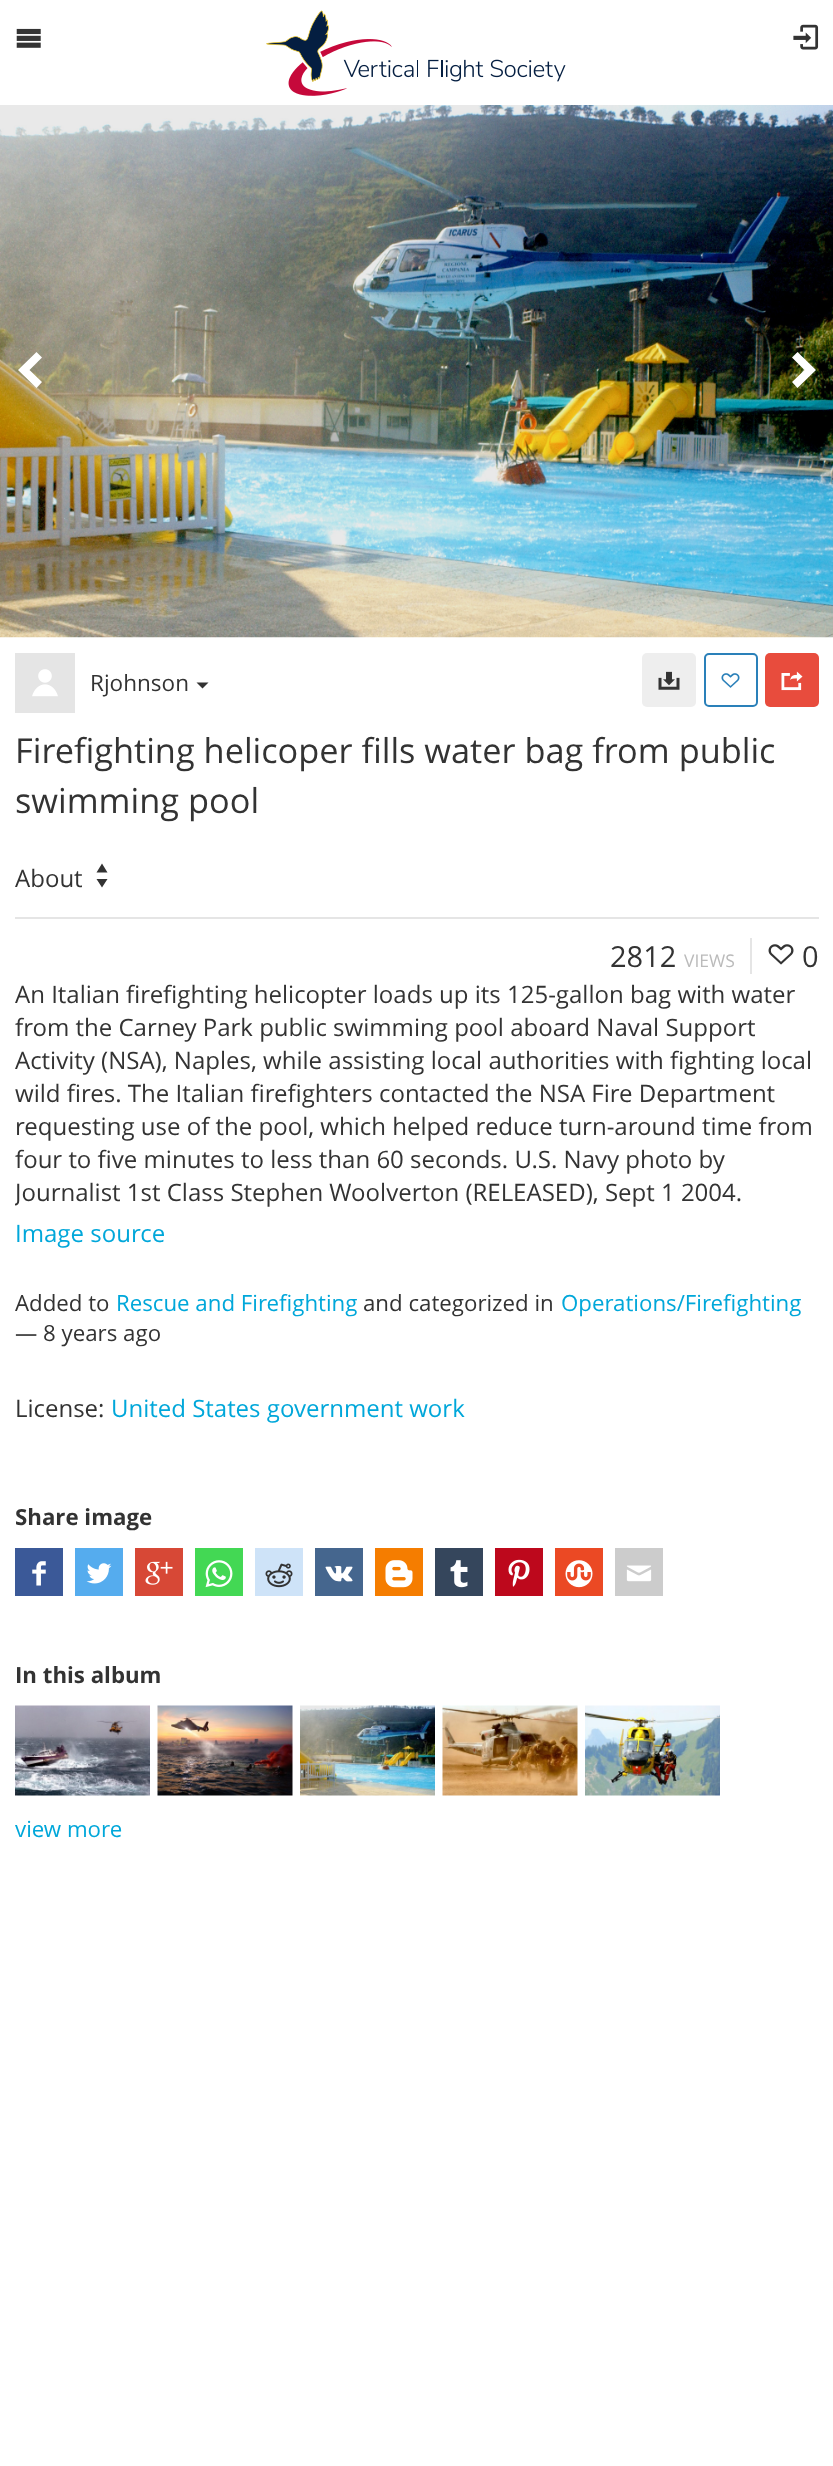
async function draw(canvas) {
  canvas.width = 833;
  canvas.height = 2466;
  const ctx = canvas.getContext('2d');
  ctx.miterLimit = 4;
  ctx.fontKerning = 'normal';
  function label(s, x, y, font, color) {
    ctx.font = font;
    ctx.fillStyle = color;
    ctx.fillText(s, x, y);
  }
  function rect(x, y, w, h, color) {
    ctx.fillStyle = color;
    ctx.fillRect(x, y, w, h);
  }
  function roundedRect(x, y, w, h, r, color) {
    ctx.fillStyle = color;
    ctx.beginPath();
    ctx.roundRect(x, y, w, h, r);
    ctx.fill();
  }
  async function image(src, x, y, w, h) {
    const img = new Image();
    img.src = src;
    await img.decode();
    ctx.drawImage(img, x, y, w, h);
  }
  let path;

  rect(0, 0, 833, 2466, '#fff');
  await image('assets/img1.png', 16, 28, 25, 20);
  await image('assets/img2.png', 266, 10, 300, 86);
  await image('assets/img3.png', 793, 24, 26, 26);
  await image('assets/img4.png', 0, 105, 833, 533);
  path = new Path2D('M36.5 352L18 370L36.5 388L42 382L29.5 370L42 357.5Z');
  ctx.fill(path);
  path = new Path2D('M797.5 352L816 370L797.5 388L792 382L804.5 370L792 357.5Z');
  ctx.fill(path);
  rect(15, 653, 60, 60, '#e5e5e5');
  await image('assets/img5.png', 32, 669, 26, 28);
  label('Rjohnson', 90, 691, '22.5px Open Sans', '#333');
  path = new Path2D('M196.5 682.5H208.5L202.5 688.5Z');
  ctx.fill(path);
  roundedRect(642, 653, 54, 54, 5, '#eee');
  await image('assets/img6.png', 658, 671, 22, 19);
  ctx.beginPath();
  ctx.roundRect(705, 654, 52, 52, 4);
  ctx.strokeStyle = '#2a80b9';
  ctx.lineWidth = 2;
  ctx.stroke();
  await image('assets/img7.png', 721, 673, 19, 15);
  roundedRect(765, 653, 54, 54, 5, '#e84c3d');
  await image('assets/img8.png', 781, 671, 22, 20);
  label('Firefighting helicoper fills water bag from public', 15, 763, '34.3px Open Sans', '#333');
  label('swimming pool', 15, 813, '34.3px Open Sans', '#333');
  rect(15, 917, 804, 2, '#e5e5e5');
  label('About', 15, 887, '24px Open Sans', '#333');
  path = new Path2D('M102 863.5L96.5 872.5H107.5ZM102 887.5L107.5 879H96.5Z');
  ctx.fill(path);
  label('2812', 610, 967, '29px Open Sans', '#333');
  label('VIEWS', 684, 967, '17.5px Open Sans', '#bbb');
  rect(750, 938, 2, 36, '#e5e5e5');
  await image('assets/img9.png', 768, 944, 26, 21);
  label('0', 802, 967, '29px Open Sans', '#333');
  label('An Italian firefighting helicopter loads up its 125-gallon bag with water', 15, 1003, '24px Open Sans', '#333');
  label('from the Carney Park public swimming pool aboard Naval Support', 15, 1036, '24px Open Sans', '#333');
  label('Activity (NSA), Naples, while assisting local authorities with fighting local', 15, 1069, '24px Open Sans', '#333');
  label('wild fires. The Italian firefighters contacted the NSA Fire Department', 15, 1102, '24px Open Sans', '#333');
  label('requesting use of the pool, which helped reduce turn-around time from', 15, 1135, '24px Open Sans', '#333');
  label('four to five minutes to less than 60 seconds. U.S. Navy photo by', 15, 1168, '24px Open Sans', '#333');
  ctx.save();
  ctx.beginPath();
  ctx.rect(15, 978, 804, 884);
  ctx.clip();
  label('Journalist 1st Class Stephen Woolverton (RELEASED), Sept 1 2004.', 15, 1201, '24px Open Sans', '#333');
  ctx.restore();
  label('Image source', 15, 1242, '24px Open Sans', '#00a7da');
  label('Added to', 15, 1311, '22.25px Open Sans', '#333');
  label('Rescue and Firefighting', 116, 1311, '22.25px Open Sans', '#00a7da');
  label('and categorized in', 363, 1311, '22.25px Open Sans', '#333');
  label('Operations/Firefighting', 561, 1311, '22.25px Open Sans', '#00a7da');
  label('— 8 years ago', 15, 1341, '22.25px Open Sans', '#333');
  label('License:', 15, 1417, '24px Open Sans', '#333');
  label('United States government work', 111, 1417, '24px Open Sans', '#00a7da');
  label('Share image', 15, 1525, 'bold 22.25px Open Sans', '#333');
  rect(15, 1548, 48, 48, '#3b5998');
  await image('assets/img10.png', 32, 1561, 14, 25);
  rect(75, 1548, 48, 48, '#55acee');
  await image('assets/img11.png', 86, 1563, 26, 21);
  rect(135, 1548, 48, 48, '#d74836');
  await image('assets/img12.png', 145, 1561, 28, 24);
  rect(195, 1548, 48, 48, '#43d854');
  await image('assets/img13.png', 205, 1560, 28, 28);
  rect(255, 1548, 48, 48, '#cee3f8');
  await image('assets/img14.png', 265, 1563, 28, 25);
  rect(315, 1548, 48, 48, '#45668e');
  await image('assets/img15.png', 325, 1566, 28, 16);
  rect(375, 1548, 48, 48, '#f57d00');
  await image('assets/img16.png', 385, 1560, 28, 28);
  rect(435, 1548, 48, 48, '#35465c');
  await image('assets/img17.png', 450, 1560, 18, 28);
  rect(495, 1548, 48, 48, '#bd081c');
  await image('assets/img18.png', 508, 1559, 22, 28);
  rect(555, 1548, 48, 48, '#eb4924');
  await image('assets/img19.png', 565, 1560, 28, 28);
  rect(615, 1548, 48, 48, '#ccc');
  await image('assets/img20.png', 626, 1565, 26, 17);
  label('In this album', 15, 1683, 'bold 22.25px Open Sans', '#333');
  await image('assets/img21.png', 15, 1705, 135, 91);
  await image('assets/img22.png', 157, 1705, 136, 91);
  await image('assets/img23.png', 300, 1705, 135, 91);
  await image('assets/img24.png', 442, 1705, 136, 91);
  await image('assets/img25.png', 585, 1705, 135, 91);
  label('view more', 15, 1837, '22.25px Open Sans', '#00a7da');
}

draw(document.querySelector('canvas'));
